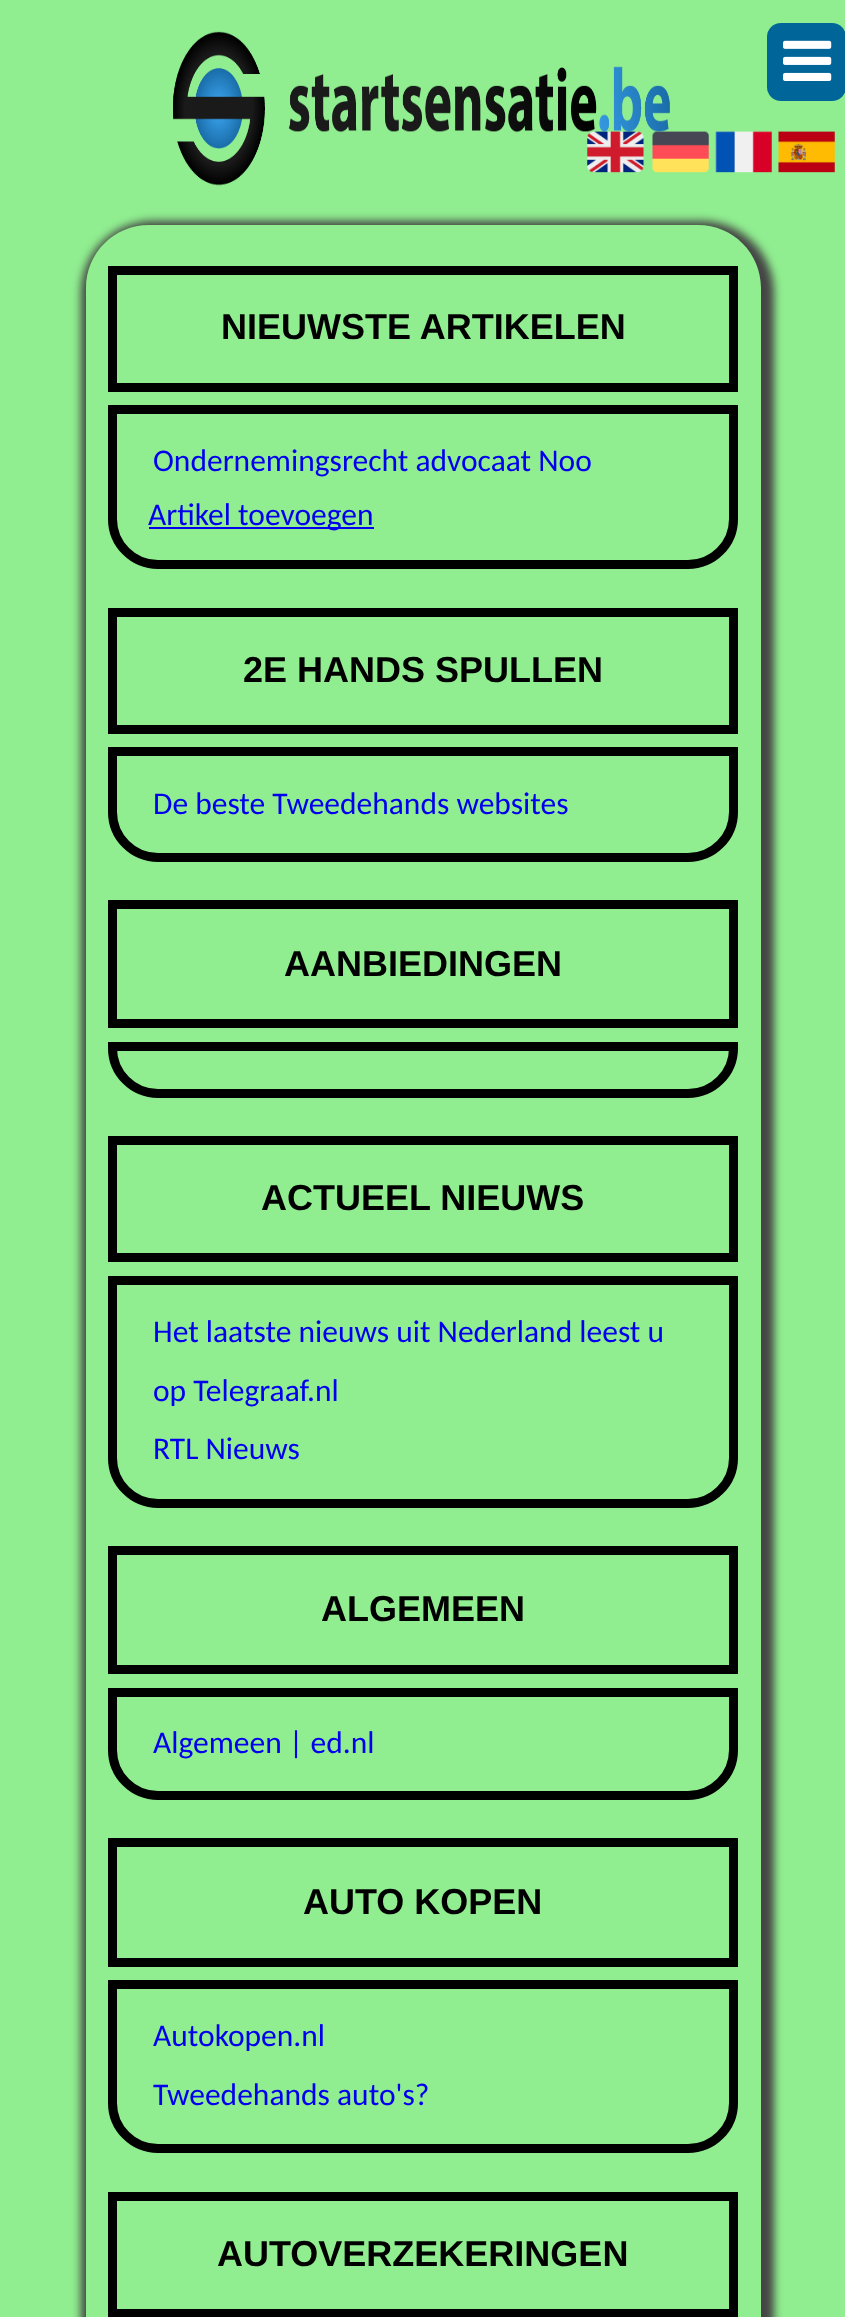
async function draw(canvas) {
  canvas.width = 845;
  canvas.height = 2317;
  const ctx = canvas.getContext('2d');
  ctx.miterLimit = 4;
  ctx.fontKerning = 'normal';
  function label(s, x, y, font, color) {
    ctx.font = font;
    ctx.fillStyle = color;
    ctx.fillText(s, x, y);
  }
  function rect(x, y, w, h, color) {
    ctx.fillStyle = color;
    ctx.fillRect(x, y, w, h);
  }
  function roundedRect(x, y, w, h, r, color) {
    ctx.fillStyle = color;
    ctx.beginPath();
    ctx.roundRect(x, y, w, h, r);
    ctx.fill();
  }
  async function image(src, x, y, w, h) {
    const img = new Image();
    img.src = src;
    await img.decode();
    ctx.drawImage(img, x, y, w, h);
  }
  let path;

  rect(0, 0, 845, 2317, '#90ee90');
  await image('assets/img1.png', 173, 31, 497, 155);
  roundedRect(767, 23, 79, 78, 14, '#069');
  await image('assets/img2.png', 783, 40, 49, 41);
  await image('assets/img3.png', 587, 131, 57, 42);
  await image('assets/img4.png', 652, 131, 57, 42);
  await image('assets/img5.png', 715, 131, 57, 42);
  await image('assets/img6.png', 778, 131, 57, 42);
  ctx.save();
  path = new Path2D('M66 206H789V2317H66ZM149 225H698C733 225 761 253 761 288V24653C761 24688 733 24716 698 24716H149C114 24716 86 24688 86 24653V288C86 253 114 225 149 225Z');
  ctx.clip(path, 'evenodd');
  ctx.fillStyle = '#444';
  ctx.filter = 'blur(4.5px)';
  ctx.beginPath();
  ctx.roundRect(81, 221, 693, 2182, 72);
  ctx.fill();
  ctx.filter = 'none';
  ctx.restore();
  ctx.strokeStyle = '#000';
  ctx.lineWidth = 9;
  ctx.strokeRect(112.5, 270.5, 621, 117);
  label('NIEUWSTE ARTIKELEN', 221, 339, 'bold 36px Liberation Sans', '#000');
  ctx.beginPath();
  ctx.roundRect(112.5, 409.5, 621, 155, [0, 0, 45.5, 45.5]);
  ctx.stroke();
  label('Ondernemingsrecht advocaat Noo', 153, 471, '31.5px Carlito', '#00e');
  rect(149, 527, 225, 2, '#00e');
  label('Artikel toevoegen', 148, 525, '31.5px Carlito', '#00e');
  ctx.strokeRect(112.5, 612.5, 621, 117);
  label('2E HANDS SPULLEN', 243, 682, 'bold 36px Liberation Sans', '#000');
  ctx.beginPath();
  ctx.roundRect(112.5, 751.5, 621, 106, [0, 0, 45.5, 45.5]);
  ctx.stroke();
  label('De beste Tweedehands websites', 153, 814, '31.5px Carlito', '#00e');
  ctx.strokeRect(112.5, 904.5, 621, 119);
  label('AANBIEDINGEN', 284, 976, 'bold 36px Liberation Sans', '#000');
  ctx.beginPath();
  ctx.roundRect(112.5, 1046.5, 621, 47, [0, 0, 45.5, 45.5]);
  ctx.stroke();
  ctx.strokeRect(112.5, 1140.5, 621, 117);
  label('ACTUEEL NIEUWS', 261, 1210, 'bold 36px Liberation Sans', '#000');
  ctx.beginPath();
  ctx.roundRect(112.5, 1280.5, 621, 223, [0, 0, 45.5, 45.5]);
  ctx.stroke();
  label('Het laatste nieuws uit Nederland leest u', 153, 1342, '31.5px Carlito', '#00e');
  label('op Telegraaf.nl', 153, 1401, '31.5px Carlito', '#00e');
  label('RTL Nieuws', 153, 1459, '31.5px Carlito', '#00e');
  ctx.strokeRect(112.5, 1550.5, 621, 119);
  label('ALGEMEEN', 321, 1621, 'bold 36px Liberation Sans', '#000');
  ctx.beginPath();
  ctx.roundRect(112.5, 1692.5, 621, 103, [0, 0, 45.5, 45.5]);
  ctx.stroke();
  label('Algemeen | ed.nl', 153, 1753, '31.5px Carlito', '#00e');
  ctx.strokeRect(112.5, 1842.5, 621, 120);
  label('AUTO KOPEN', 303, 1914, 'bold 36px Liberation Sans', '#000');
  ctx.beginPath();
  ctx.roundRect(112.5, 1984.5, 621, 164, [0, 0, 45.5, 45.5]);
  ctx.stroke();
  label('Autokopen.nl', 153, 2046, '31.5px Carlito', '#00e');
  label('Tweedehands auto\'s?', 153, 2105, '31.5px Carlito', '#00e');
  ctx.strokeRect(112.5, 2196.5, 621, 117);
  label('AUTOVERZEKERINGEN', 217, 2266, 'bold 36px Liberation Sans', '#000');
}

draw(document.querySelector('canvas'));
